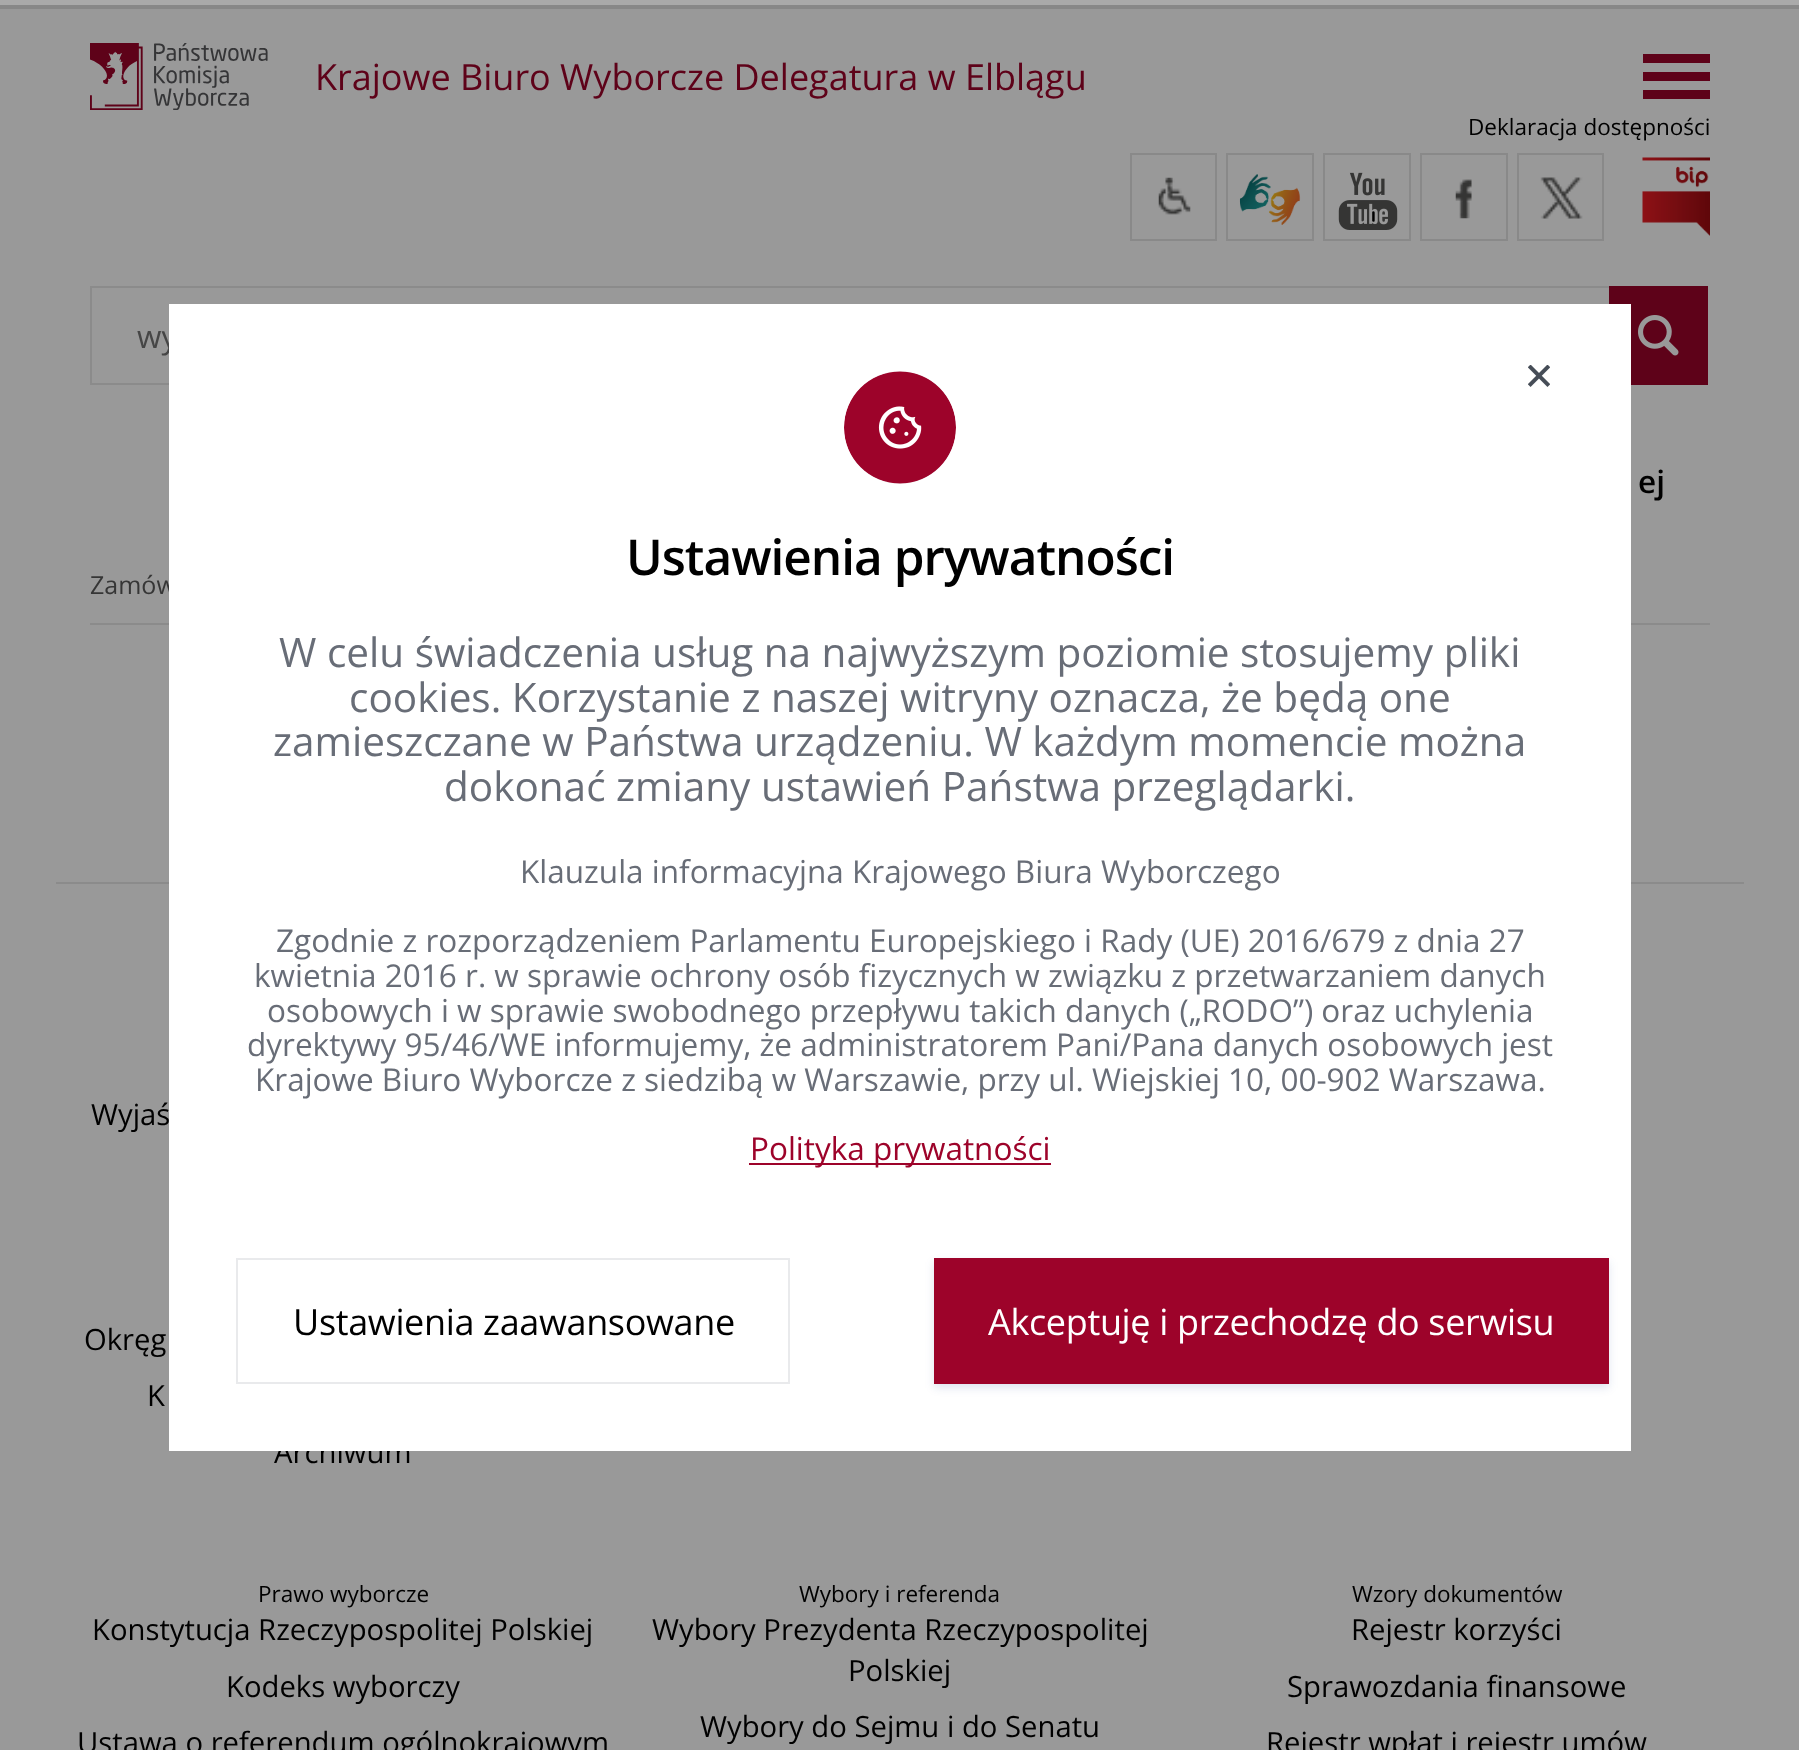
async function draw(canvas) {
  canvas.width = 1799;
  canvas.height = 1750;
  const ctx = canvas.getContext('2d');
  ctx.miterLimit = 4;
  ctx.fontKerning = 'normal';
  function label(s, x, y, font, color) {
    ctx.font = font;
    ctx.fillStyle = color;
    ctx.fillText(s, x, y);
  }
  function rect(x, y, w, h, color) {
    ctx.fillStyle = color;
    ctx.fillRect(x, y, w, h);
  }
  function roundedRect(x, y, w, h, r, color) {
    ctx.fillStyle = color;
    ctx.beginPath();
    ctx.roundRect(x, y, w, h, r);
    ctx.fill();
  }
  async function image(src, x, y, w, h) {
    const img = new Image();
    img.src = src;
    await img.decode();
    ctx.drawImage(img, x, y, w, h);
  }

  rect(0, 0, 1799, 1750, '#999');
  rect(0, 5, 1799, 4, '#888');
  await image('assets/img1.png', 90, 43, 178, 67);
  label('Krajowe Biuro Wyborcze Delegatura w Elblągu', 315, 90, '36px Open Sans', '#5e0219');
  rect(1643, 54, 67, 9, '#5e0219');
  rect(1643, 72, 67, 9, '#5e0219');
  rect(1643, 90, 67, 9, '#5e0219');
  label('Deklaracja dostępności', 1468, 135, '22.5px Open Sans', '#000');
  ctx.strokeStyle = '#898989';
  ctx.lineWidth = 2;
  ctx.strokeRect(1131, 154, 85, 86);
  await image('assets/img2.png', 1158, 177, 33, 38);
  ctx.strokeRect(1227, 154, 86, 86);
  await image('assets/img3.png', 1239, 174, 62, 51);
  ctx.strokeRect(1324, 154, 86, 86);
  await image('assets/img4.png', 1338, 172, 60, 58);
  ctx.strokeRect(1421, 154, 86, 86);
  await image('assets/img5.png', 1455, 179, 17, 40);
  ctx.strokeRect(1518, 154, 85, 86);
  await image('assets/img6.png', 1540, 177, 43, 42);
  await image('assets/img7.png', 1642, 157, 68, 79);
  ctx.strokeStyle = '#8b8b8b';
  ctx.strokeRect(91, 287, 1519, 97);
  label('wy', 137, 348, '31.5px Open Sans', '#464646');
  rect(1609, 286, 99, 99, '#5e0219');
  await image('assets/img8.png', 1638, 315, 41, 41);
  label('ej', 1638, 493, '600 31.5px Open Sans', '#000');
  rect(90, 623, 1620, 2, '#8b8b8b');
  label('Zamów', 90, 594, '25px Open Sans', '#363636');
  rect(0, 0, 1799, 5, '#aaa');
  rect(56, 882, 1688, 2, '#8b8b8b');
  label('Archiwum', 274, 1463, '29.25px Open Sans', '#000');
  rect(169, 304, 1462, 1147, '#fff');
  await image('assets/img9.png', 1528, 365, 22, 22);
  roundedRect(844, 371, 112, 113, 56, '#f7f7f7');
  await image('assets/img10.png', 844, 371, 112, 113);
  ctx.letterSpacing = '-1px';
  label('Ustawienia prywatności', 626, 575, '600 49.5px Open Sans', '#000');
  ctx.letterSpacing = '0px';
  label('W celu świadczenia usług na najwyższym poziomie stosujemy pliki', 279, 667, '40.5px Open Sans', '#686d77');
  label('cookies. Korzystanie z naszej witryny oznacza, że będą one', 349, 712, '40.5px Open Sans', '#686d77');
  label('zamieszczane w Państwa urządzeniu. W każdym momencie można', 273, 756, '40.5px Open Sans', '#686d77');
  label('dokonać zmiany ustawień Państwa przeglądarki.', 444, 801, '40.5px Open Sans', '#686d77');
  label('Klauzula informacyjna Krajowego Biura Wyborczego', 520, 883, '31.5px Open Sans', '#686d77');
  label('Zgodnie z rozporządzeniem Parlamentu Europejskiego i Rady (UE) 2016/679 z dnia 27', 276, 952, '31.5px Open Sans', '#686d77');
  label('kwietnia 2016 r. w sprawie ochrony osób fizycznych w związku z przetwarzaniem danych', 254, 987, '31.5px Open Sans', '#686d77');
  label('osobowych i w sprawie swobodnego przepływu takich danych („RODO”) oraz uchylenia', 267, 1022, '31.5px Open Sans', '#686d77');
  label('dyrektywy 95/46/WE informujemy, że administratorem Pani/Pana danych osobowych jest', 247, 1056, '31.5px Open Sans', '#686d77');
  label('Krajowe Biuro Wyborcze z siedzibą w Warszawie, przy ul. Wiejskiej 10, 00-902 Warszawa.', 255, 1091, '31.5px Open Sans', '#686d77');
  rect(749, 1163, 302, 2, '#9d032a');
  label('Polityka prywatności', 750, 1160, '31.5px Open Sans', '#9d032a');
  ctx.strokeStyle = '#e9eaec';
  ctx.strokeRect(237, 1259, 552, 124);
  ctx.letterSpacing = '-0.35px';
  label('Ustawienia zaawansowane', 293, 1335, '36px Open Sans', '#000');
  ctx.fillStyle = '#0128801f';
  ctx.filter = 'blur(4.5px)';
  ctx.beginPath();
  ctx.rect(934, 1262, 675, 126);
  ctx.fill();
  ctx.filter = 'none';
  rect(934, 1258, 675, 126, '#9d032a');
  label('Akceptuję i przechodzę do serwisu', 988, 1335, '36px Open Sans', '#fff');
  ctx.letterSpacing = '0px';
  label('Wyjaś', 91, 1125, '29.25px Open Sans', '#000');
  label('Okręg', 84, 1350, '29.25px Open Sans', '#000');
  label('K', 147, 1406, '29.25px Open Sans', '#000');
  label('Prawo wyborcze', 258, 1602, '22.5px Open Sans', '#000');
  label('Konstytucja Rzeczypospolitej Polskiej', 92, 1640, '29.25px Open Sans', '#000');
  label('Kodeks wyborczy', 226, 1697, '29.25px Open Sans', '#000');
  label('Ustawa o referendum ogólnokrajowym', 77, 1753, '29.25px Open Sans', '#000');
  label('Wybory i referenda', 799, 1602, '22.5px Open Sans', '#000');
  label('Wybory Prezydenta Rzeczypospolitej', 652, 1640, '29.25px Open Sans', '#000');
  label('Polskiej', 848, 1681, '29.25px Open Sans', '#000');
  label('Wybory do Sejmu i do Senatu', 700, 1737, '29.25px Open Sans', '#000');
  label('Wzory dokumentów', 1352, 1602, '22.5px Open Sans', '#000');
  label('Rejestr korzyści', 1351, 1640, '29.25px Open Sans', '#000');
  label('Sprawozdania finansowe', 1287, 1697, '29.25px Open Sans', '#000');
  label('Rejestr wpłat i rejestr umów', 1266, 1753, '29.25px Open Sans', '#000');
}

draw(document.querySelector('canvas'));
